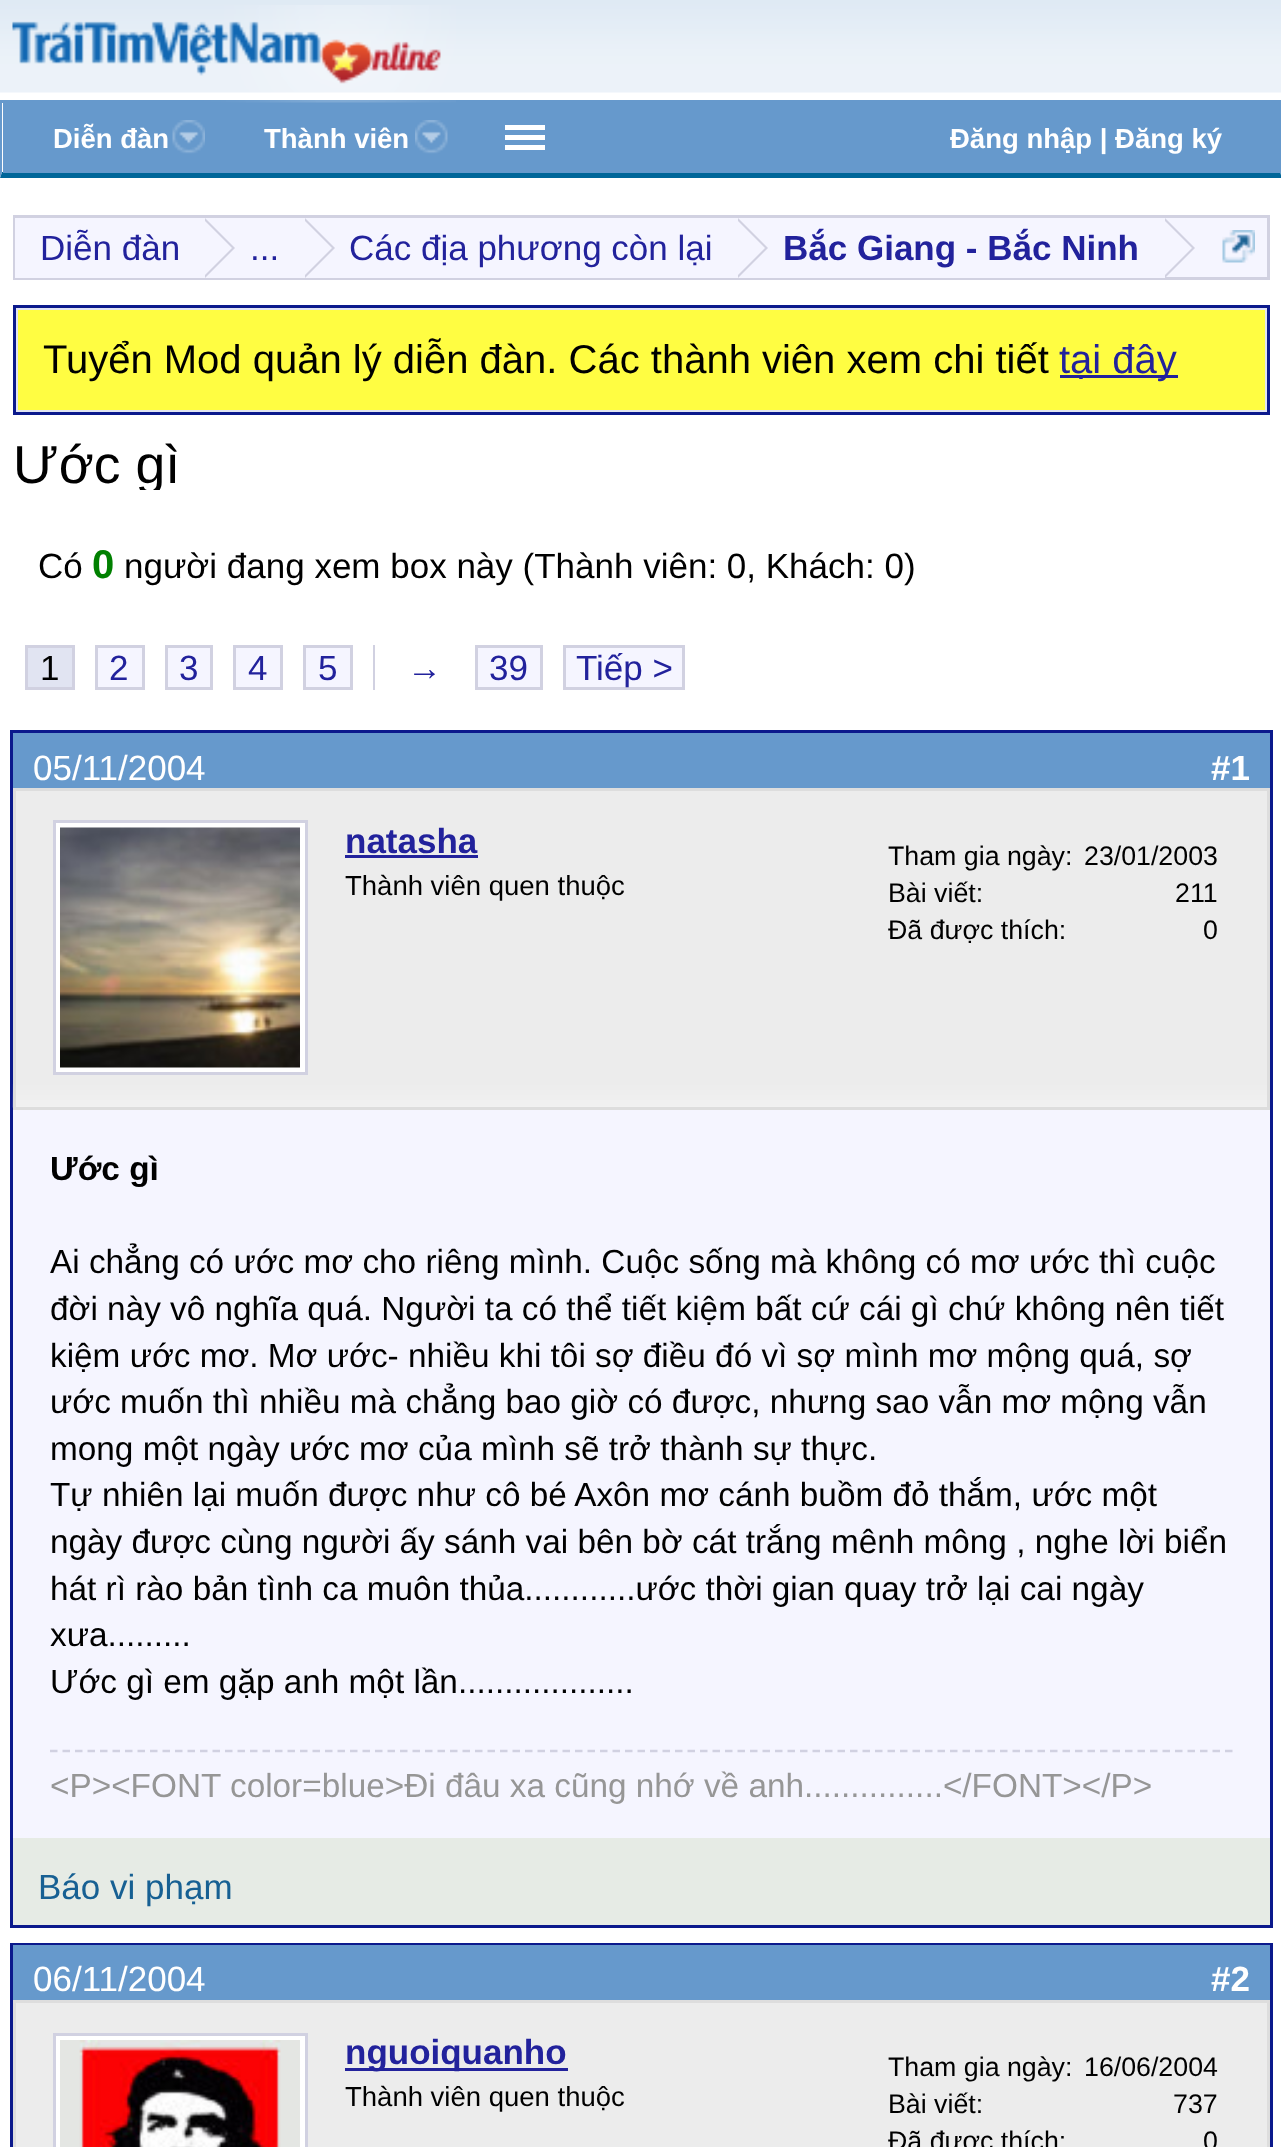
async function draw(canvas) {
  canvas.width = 1281;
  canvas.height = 2147;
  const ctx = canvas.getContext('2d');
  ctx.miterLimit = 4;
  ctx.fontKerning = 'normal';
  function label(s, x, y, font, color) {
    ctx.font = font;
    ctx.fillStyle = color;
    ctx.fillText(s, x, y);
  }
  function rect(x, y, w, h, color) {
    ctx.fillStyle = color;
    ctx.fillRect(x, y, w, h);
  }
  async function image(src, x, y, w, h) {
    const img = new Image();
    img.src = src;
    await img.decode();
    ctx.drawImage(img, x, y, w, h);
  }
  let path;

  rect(0, 0, 1281, 2147, '#fff');
  await image('assets/img1.png', 0, 0, 1281, 93);
  rect(0, 100, 1281, 3, '#69c');
  await image('assets/img2.png', 12, 5, 444, 98);
  path = new Path2D('M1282 100V178L1280 172V102Z');
  ctx.fill(path);
  ctx.fillStyle = '#069';
  path = new Path2D('M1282 178H0L2 172H1280Z');
  ctx.fill(path);
  ctx.fillStyle = '#69c';
  path = new Path2D('M0 178V100L2 102V172Z');
  ctx.fill(path);
  rect(3, 103, 1277, 70, '#69c');
  label('Diễn đàn', 53, 148, 'bold 27.5px Liberation Sans', '#fff');
  await image('assets/img3.png', 172, 120, 33, 34);
  label('Thành viên', 264, 148, 'bold 27.5px Liberation Sans', '#fff');
  await image('assets/img4.png', 415, 120, 33, 34);
  rect(505, 125, 40, 5, '#fff');
  rect(505, 135, 40, 5, '#fff');
  rect(505, 145, 40, 5, '#fff');
  label('Đăng nhập | Đăng ký', 950, 148, 'bold 27.5px Liberation Sans', '#fff');
  rect(1165, 218, 102, 59, '#f5f5ff');
  ctx.strokeStyle = '#d1d1e1';
  ctx.lineWidth = 3;
  ctx.strokeRect(14.5, 216.5, 1254, 62);
  rect(15, 218, 1150, 60, '#f5f5ff');
  label('Diễn đàn', 40, 260, '35px Liberation Sans', '#22229c');
  ctx.fillStyle = '#d1d1e1';
  path = new Path2D('M205 278V218L235 248Z');
  ctx.fill(path);
  ctx.fillStyle = '#f5f5ff';
  path = new Path2D('M202 278V218L232 248Z');
  ctx.fill(path);
  label('...', 250, 260, '35px Liberation Sans', '#22229c');
  ctx.fillStyle = '#d1d1e1';
  path = new Path2D('M305 278V218L335 248Z');
  ctx.fill(path);
  ctx.fillStyle = '#f5f5ff';
  path = new Path2D('M302 278V218L332 248Z');
  ctx.fill(path);
  label('Các địa phương còn lại', 349, 260, '35px Liberation Sans', '#22229c');
  ctx.fillStyle = '#d1d1e1';
  path = new Path2D('M738 278V218L768 248Z');
  ctx.fill(path);
  ctx.fillStyle = '#f5f5ff';
  path = new Path2D('M735 278V218L765 248Z');
  ctx.fill(path);
  label('Bắc Giang - Bắc Ninh', 783, 260, 'bold 35px Liberation Sans', '#22229c');
  ctx.fillStyle = '#d1d1e1';
  path = new Path2D('M1165 278V218L1195 248Z');
  ctx.fill(path);
  ctx.fillStyle = '#f5f5ff';
  path = new Path2D('M1162 278V218L1192 248Z');
  ctx.fill(path);
  await image('assets/img5.png', 1222, 230, 33, 33);
  ctx.fillStyle = '#e1e4f2';
  ctx.beginPath();
  ctx.rect(14.5, 306.5, 1254, 107);
  ctx.fill();
  ctx.strokeStyle = '#0b198c';
  ctx.stroke();
  rect(18, 310, 1247, 100, '#fffd42');
  label('Tuyển Mod quản lý diễn đàn. Các thành viên xem chi tiết', 43, 373, '40px Liberation Sans', '#000');
  rect(1060, 375, 118, 3, '#22229c');
  label('tại đây', 1059, 373, '40px Liberation Sans', '#22229c');
  ctx.save();
  ctx.beginPath();
  ctx.rect(13, 440, 1257, 50);
  ctx.clip();
  label('Ước gì', 13, 483, '53.5px Liberation Sans', '#000');
  ctx.restore();
  label('Có', 38, 578, '35px Liberation Sans', '#000');
  label('0', 92, 578, 'bold 40px Liberation Sans', '#008000');
  label('người đang xem box này (Thành viên: 0, Khách: 0)', 124, 578, '35px Liberation Sans', '#000');
  ctx.fillStyle = '#e1e4f2';
  ctx.beginPath();
  ctx.rect(26.5, 646.5, 47, 42);
  ctx.fill();
  ctx.strokeStyle = '#d1d1e1';
  ctx.stroke();
  label('1', 40, 680, '35px Liberation Sans', '#000');
  ctx.fillStyle = '#f5f5ff';
  ctx.beginPath();
  ctx.rect(96.5, 646.5, 47, 42);
  ctx.fill();
  ctx.stroke();
  label('2', 109, 680, '35px Liberation Sans', '#22229c');
  ctx.fillStyle = '#f5f5ff';
  ctx.beginPath();
  ctx.rect(166.5, 646.5, 45, 42);
  ctx.fill();
  ctx.stroke();
  label('3', 179, 680, '35px Liberation Sans', '#22229c');
  ctx.fillStyle = '#f5f5ff';
  ctx.beginPath();
  ctx.rect(234.5, 646.5, 47, 42);
  ctx.fill();
  ctx.stroke();
  label('4', 248, 680, '35px Liberation Sans', '#22229c');
  ctx.fillStyle = '#f5f5ff';
  ctx.beginPath();
  ctx.rect(304.5, 646.5, 47, 42);
  ctx.fill();
  ctx.stroke();
  label('5', 318, 680, '35px Liberation Sans', '#22229c');
  label('→', 407, 680, '35px Liberation Sans', '#22229c');
  ctx.save();
  ctx.beginPath();
  ctx.rect(83, 645, 292, 45);
  ctx.clip();
  ctx.strokeRect(374.5, 646.5, 47, 42);
  ctx.restore();
  ctx.fillStyle = '#f5f5ff';
  ctx.beginPath();
  ctx.rect(476.5, 646.5, 65, 42);
  ctx.fill();
  ctx.stroke();
  label('39', 489, 680, '35px Liberation Sans', '#22229c');
  ctx.fillStyle = '#f5f5ff';
  ctx.beginPath();
  ctx.rect(564.5, 646.5, 119, 42);
  ctx.fill();
  ctx.stroke();
  label('Tiếp >', 576, 680, '35px Liberation Sans', '#22229c');
  ctx.strokeStyle = '#0b198c';
  ctx.strokeRect(11.5, 731.5, 1260, 1195);
  rect(13, 1110, 1257, 728, '#f5f5ff');
  rect(13, 733, 1257, 55, '#69c');
  label('05/11/2004', 33, 780, '35px Liberation Sans', '#fff');
  label('#1', 1211, 780, 'bold 35px Liberation Sans', '#fff');
  rect(13, 1838, 1257, 87, '#e6ebe5');
  label('Báo vi phạm', 38, 1899, '35px Liberation Sans', '#176093');
  rect(16, 791, 1251, 316, '#ececec');
  await image('assets/img6.png', 12, 1084, 1255, 24);
  ctx.strokeStyle = '#ddd';
  ctx.strokeRect(14.5, 789.5, 1254, 319);
  ctx.fillStyle = '#fff';
  ctx.beginPath();
  ctx.rect(54.5, 821.5, 252, 252);
  ctx.fill();
  ctx.strokeStyle = '#d1d1e1';
  ctx.stroke();
  await image('assets/img7.png', 60, 827, 240, 241);
  label('natasha', 345, 853, 'bold 35px Liberation Sans', '#22229c');
  rect(345, 855, 133, 3, '#22229c');
  label('Thành viên quen thuộc', 345, 895, '27.5px Liberation Sans', '#000');
  label('Tham gia ngày:', 888, 865, '26.75px Liberation Sans', '#000');
  label('23/01/2003', 1084, 865, '26.75px Liberation Sans', '#000');
  label('Bài viết:', 888, 902, '26.75px Liberation Sans', '#000');
  label('211', 1175, 902, '26.75px Liberation Sans', '#000');
  label('Đã được thích:', 888, 939, '26.75px Liberation Sans', '#000');
  label('0', 1203, 939, '26.75px Liberation Sans', '#000');
  label('Ước gì', 50, 1180, 'bold 33.35px Liberation Sans', '#000');
  label('Ai chẳng có ước mơ cho riêng mình. Cuộc sống mà không có mơ ước thì cuộc', 50, 1273, '33.35px Liberation Sans', '#000');
  label('đời này vô nghĩa quá. Người ta có thể tiết kiệm bất cứ cái gì chứ không nên tiết', 50, 1320, '33.35px Liberation Sans', '#000');
  label('kiệm ước mơ. Mơ ước- nhiều khi tôi sợ điều đó vì sợ mình mơ mộng quá, sợ', 50, 1367, '33.35px Liberation Sans', '#000');
  label('ước muốn thì nhiều mà chẳng bao giờ có được, nhưng sao vẫn mơ mộng vẫn', 50, 1413, '33.35px Liberation Sans', '#000');
  label('mong một ngày ước mơ của mình sẽ trở thành sự thực.', 50, 1460, '33.35px Liberation Sans', '#000');
  label('Tự nhiên lại muốn được như cô bé Axôn mơ cánh buồm đỏ thắm, ước một', 50, 1506, '33.35px Liberation Sans', '#000');
  label('ngày được cùng người ấy sánh vai bên bờ cát trắng mênh mông , nghe lời biển', 50, 1553, '33.35px Liberation Sans', '#000');
  label('hát rì rào bản tình ca muôn thủa............ước thời gian quay trở lại cai ngày', 50, 1600, '33.35px Liberation Sans', '#000');
  label('xưa.........', 50, 1646, '33.35px Liberation Sans', '#000');
  label('Ước gì em gặp anh một lần...................', 50, 1693, '33.35px Liberation Sans', '#000');
  path = new Path2D('M50 1751H1232.5');
  ctx.lineWidth = 2.5;
  ctx.setLineDash([7.5, 5]);
  ctx.stroke(path);
  label('<P><FONT color=blue>Đi đâu xa cũng nhớ về anh...............<\/FONT><\/P>', 50, 1797, '33.35px Liberation Sans', '#969696');
  ctx.strokeStyle = '#0b198c';
  ctx.lineWidth = 3;
  ctx.setLineDash([]);
  ctx.strokeRect(11.5, 1944.5, 1260, 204);
  rect(13, 1945, 1257, 55, '#69c');
  label('06/11/2004', 33, 1991, '35px Liberation Sans', '#fff');
  label('#2', 1211, 1991, 'bold 35px Liberation Sans', '#fff');
  ctx.fillStyle = '#ececec';
  ctx.beginPath();
  ctx.rect(14.5, 2001.5, 1254, 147);
  ctx.fill();
  ctx.strokeStyle = '#ddd';
  ctx.stroke();
  ctx.fillStyle = '#fff';
  ctx.beginPath();
  ctx.rect(54.5, 2034.5, 252, 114);
  ctx.fill();
  ctx.strokeStyle = '#d1d1e1';
  ctx.stroke();
  await image('assets/img8.png', 60, 2040, 240, 107);
  rect(345, 2068, 223, 3, '#22229c');
  label('nguoiquanho', 345, 2064, 'bold 35px Liberation Sans', '#22229c');
  label('Thành viên quen thuộc', 345, 2106, '27.5px Liberation Sans', '#000');
  label('Tham gia ngày:', 888, 2076, '26.75px Liberation Sans', '#000');
  label('16/06/2004', 1084, 2076, '26.75px Liberation Sans', '#000');
  label('Bài viết:', 888, 2113, '26.75px Liberation Sans', '#000');
  label('737', 1173, 2113, '26.75px Liberation Sans', '#000');
  label('Đã được thích:', 888, 2150, '26.75px Liberation Sans', '#000');
  label('0', 1203, 2150, '26.75px Liberation Sans', '#000');
}

draw(document.querySelector('canvas'));
